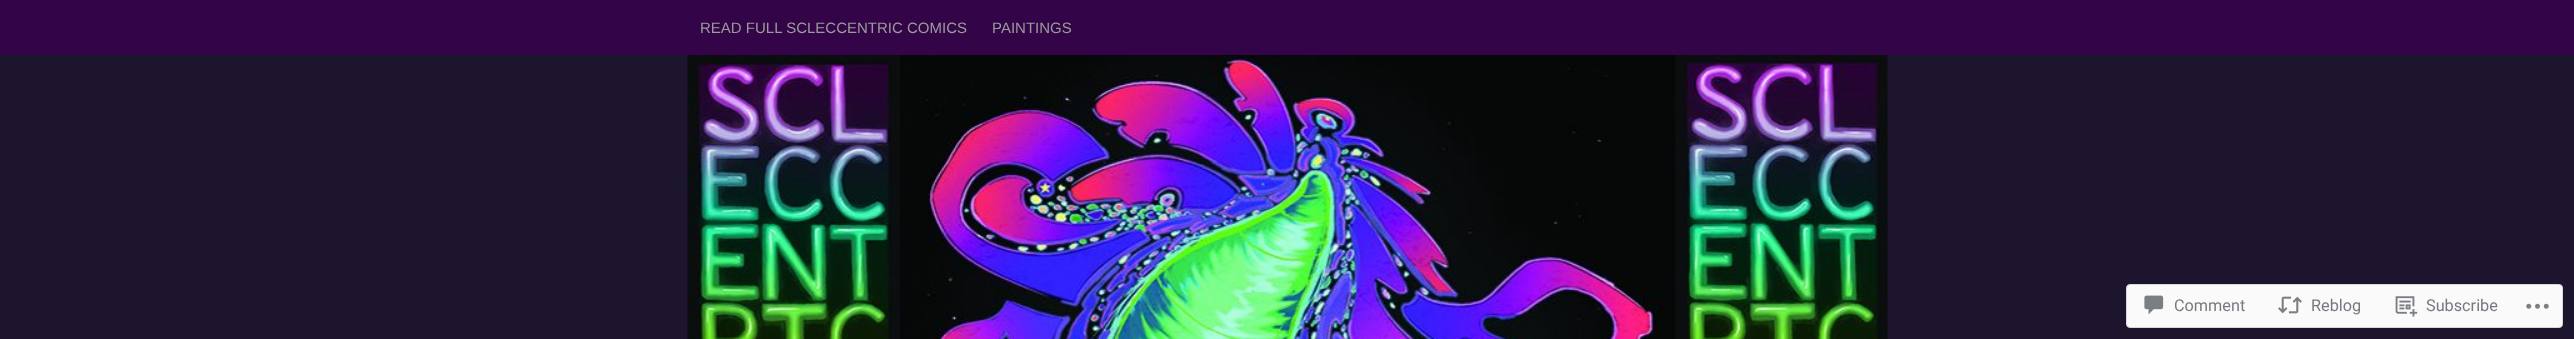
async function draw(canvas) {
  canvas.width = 2574;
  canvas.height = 339;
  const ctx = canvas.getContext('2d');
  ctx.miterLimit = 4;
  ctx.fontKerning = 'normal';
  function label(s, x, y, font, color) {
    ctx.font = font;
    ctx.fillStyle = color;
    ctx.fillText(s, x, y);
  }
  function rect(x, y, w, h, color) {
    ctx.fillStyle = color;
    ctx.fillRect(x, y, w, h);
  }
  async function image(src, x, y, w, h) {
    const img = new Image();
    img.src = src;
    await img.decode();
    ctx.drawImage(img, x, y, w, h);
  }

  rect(0, 0, 2574, 339, '#1c152d');
  rect(0, 0, 2574, 55, '#330448');
  label('READ FULL SCLECCENTRIC COMICS', 700, 33, '15px Liberation Sans', '#9b9b9b');
  label('PAINTINGS', 992, 33, '15px Liberation Sans', '#9b9b9b');
  await image('assets/img1.png', 687, 55, 1201, 284);
  ctx.fillStyle = '#fafafb';
  ctx.beginPath();
  ctx.roundRect(2126.5, 284.5, 436, 43, 3.5);
  ctx.fill();
  ctx.strokeStyle = '#d8d8da';
  ctx.stroke();
  await image('assets/img2.png', 2144, 295, 20, 20);
  label('Comment', 2174, 311, '16.25px Roboto', '#767a80');
  await image('assets/img3.png', 2278, 296, 24, 18);
  label('Reblog', 2311, 311, '16.25px Roboto', '#767a80');
  await image('assets/img4.png', 2395, 296, 23, 21);
  label('Subscribe', 2426, 311, '16.25px Roboto', '#767a80');
  await image('assets/img5.png', 2526, 303, 23, 6);
}

draw(document.querySelector('canvas'));
